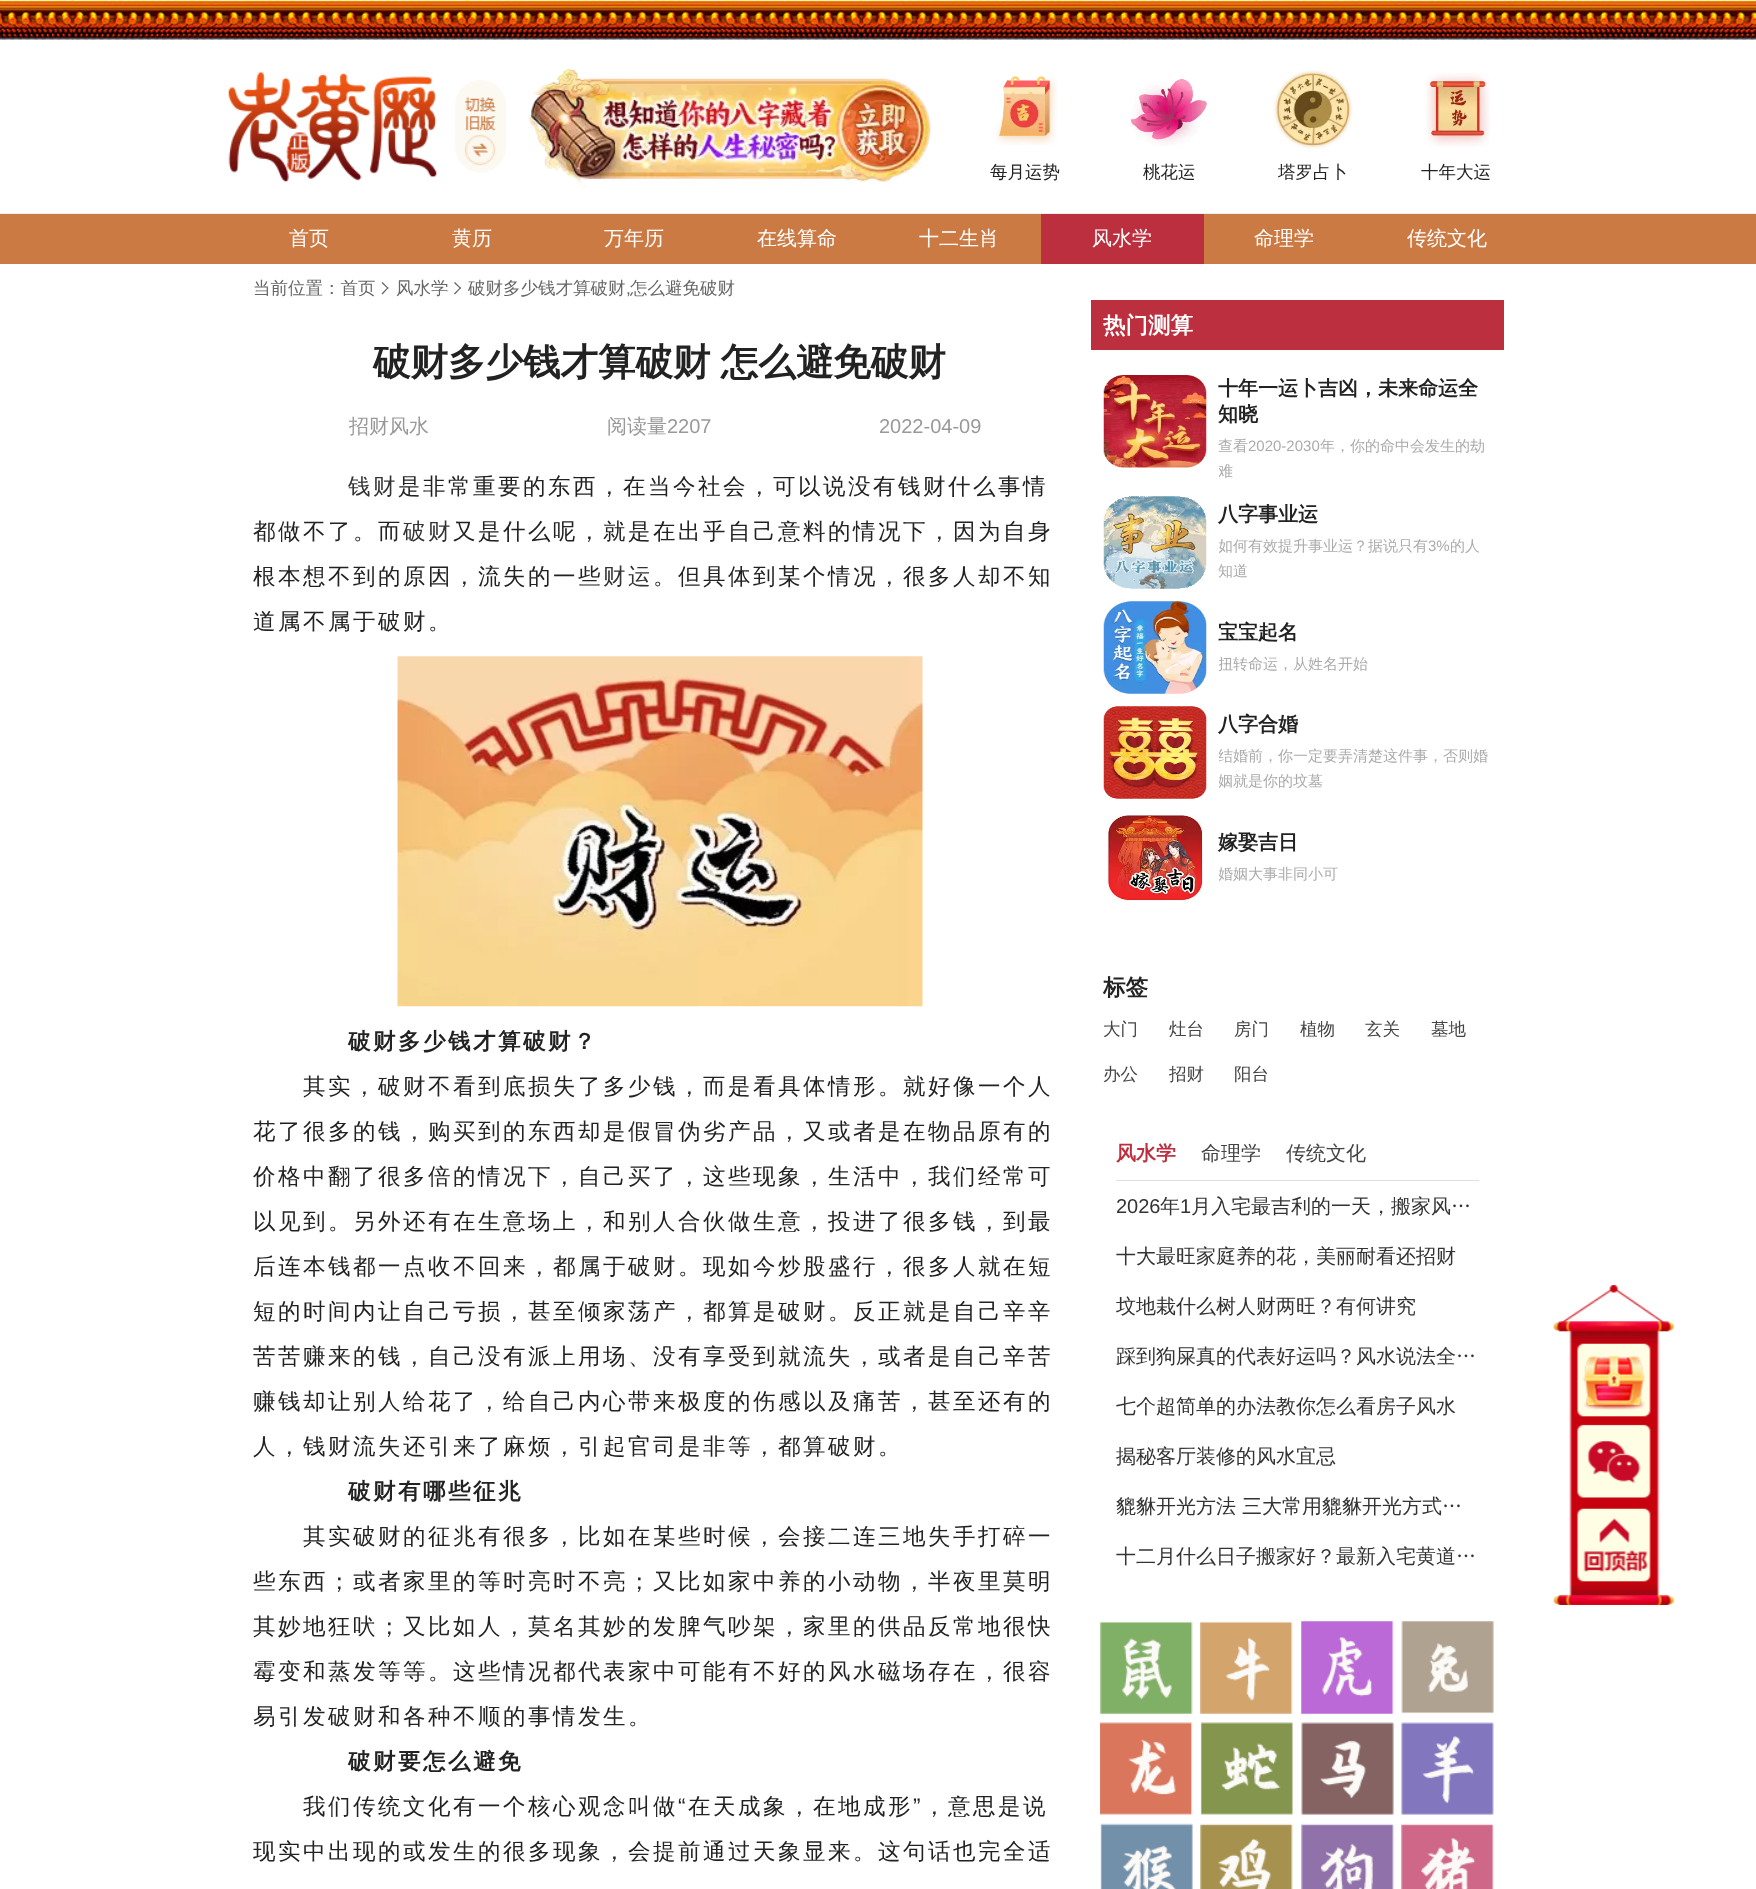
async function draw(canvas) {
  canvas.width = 1756;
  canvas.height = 1889;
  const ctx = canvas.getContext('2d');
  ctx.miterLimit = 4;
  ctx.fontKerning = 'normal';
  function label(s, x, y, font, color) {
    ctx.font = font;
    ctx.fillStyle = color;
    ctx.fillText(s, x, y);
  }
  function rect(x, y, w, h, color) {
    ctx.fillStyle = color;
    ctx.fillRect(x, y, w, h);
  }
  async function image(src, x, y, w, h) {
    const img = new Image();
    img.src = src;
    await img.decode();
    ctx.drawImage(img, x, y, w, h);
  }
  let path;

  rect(0, 0, 1756, 1889, '#fff');
  rect(0, 213, 1756, 1, '#eee');
  await image('assets/img1.png', 0, 0, 1756, 40);
  await image('assets/img2.png', 228, 72, 209, 110);
  await image('assets/img3.png', 455, 80, 51, 93);
  await image('assets/img4.png', 528, 68, 403, 120);
  await image('assets/img5.png', 995, 76, 62, 69);
  label('每月运势', 990, 178, '500 17.5px WenQuanYi Zen Hei', '#222');
  await image('assets/img6.png', 1131, 79, 76, 67);
  label('桃花运', 1143, 178, '500 17.5px WenQuanYi Zen Hei', '#222');
  await image('assets/img7.png', 1273, 70, 80, 79);
  ctx.save();
  ctx.beginPath();
  ctx.rect(1278, 159, 70, 26);
  ctx.clip();
  label('塔罗占卜', 1278, 178, '500 17.5px WenQuanYi Zen Hei', '#222');
  ctx.restore();
  await image('assets/img8.png', 1426, 73, 64, 74);
  label('十年大运', 1421, 178, '500 17.5px WenQuanYi Zen Hei', '#222');
  rect(0, 214, 1756, 50, '#cb7a43');
  label('首页', 289, 245, '500 20px WenQuanYi Zen Hei', '#fff');
  label('黄历', 452, 245, '500 20px WenQuanYi Zen Hei', '#fff');
  label('万年历', 604, 245, '500 20px WenQuanYi Zen Hei', '#fff');
  label('在线算命', 757, 245, '500 20px WenQuanYi Zen Hei', '#fff');
  label('十二生肖', 919, 245, '500 20px WenQuanYi Zen Hei', '#fff');
  rect(1041, 214, 163, 50, '#bc2f3f');
  label('风水学', 1092, 245, '500 20px WenQuanYi Zen Hei', '#fff');
  label('命理学', 1254, 245, '500 20px WenQuanYi Zen Hei', '#fff');
  label('传统文化', 1407, 245, '500 20px WenQuanYi Zen Hei', '#fff');
  label('当前位置：首页', 253, 294, '500 17.5px WenQuanYi Zen Hei', '#666');
  path = new Path2D('M382.5 282L388.5 288L388 289L381.5 283Z');
  ctx.fill(path);
  path = new Path2D('M388 287L388.5 288L382.5 294.5L381.5 293.5Z');
  ctx.fill(path);
  label('风水学', 396, 294, '500 17.5px WenQuanYi Zen Hei', '#666');
  path = new Path2D('M455 282L461 288L460.5 289L454 283Z');
  ctx.fill(path);
  path = new Path2D('M460.5 287L461 288L455 294.5L454 293.5Z');
  ctx.fill(path);
  label('破财多少钱才算破财', 468, 294, '500 17.5px WenQuanYi Zen Hei', '#666');
  label(',', 626, 294, '17.5px Liberation Sans', '#666');
  label('怎么避免破财', 630, 294, '500 17.5px WenQuanYi Zen Hei', '#666');
  ctx.wordSpacing = '-1px';
  label('破财多少钱才算破财 怎么避免破财', 373, 375, 'bold 37.5px WenQuanYi Zen Hei', '#222');
  ctx.wordSpacing = '0px';
  label('招财风水', 349, 433, '500 20px WenQuanYi Zen Hei', '#999');
  label('阅读量', 607, 433, '500 20px WenQuanYi Zen Hei', '#999');
  label('2207', 667, 433, '20px Liberation Sans', '#999');
  label('2022-04-09', 879, 433, '20px Liberation Sans', '#999');
  ctx.letterSpacing = '2.5px';
  label('钱财', 348, 494, '500 22.5px WenQuanYi Zen Hei', '#333');
  label('是非常重要的东西，在当今社会，可以说没有钱财什么事情', 398, 494, '500 22.5px WenQuanYi Zen Hei', '#222');
  label('都做不了。而', 253, 539, '500 22.5px WenQuanYi Zen Hei', '#222');
  label('破财', 403, 539, '500 22.5px WenQuanYi Zen Hei', '#333');
  label('又是什么呢，就是在出乎自己意料的情况下，因为自身', 453, 539, '500 22.5px WenQuanYi Zen Hei', '#222');
  label('根本想不到的原因，流失的一些', 253, 584, '500 22.5px WenQuanYi Zen Hei', '#222');
  label('财运', 603, 584, '500 22.5px WenQuanYi Zen Hei', '#333');
  label('。但具体到某个情况，很多人却不知', 653, 584, '500 22.5px WenQuanYi Zen Hei', '#222');
  label('道属不属于破财。', 253, 629, '500 22.5px WenQuanYi Zen Hei', '#222');
  await image('assets/img9.png', 397, 656, 526, 351);
  label('破财多少钱才算破财？', 348, 1049, 'bold 22.5px WenQuanYi Zen Hei', '#222');
  label('其实，破财不看到底损失了多少钱，而是看具体情形。就好像一个人', 303, 1094, '500 22.5px WenQuanYi Zen Hei', '#222');
  label('花了很多的钱，购买到的东西却是假冒伪劣产品，又或者是在物品原有的', 253, 1139, '500 22.5px WenQuanYi Zen Hei', '#222');
  label('价格中翻了很多倍的情况下，自己买了，这些现象，生活中，我们经常可', 253, 1184, '500 22.5px WenQuanYi Zen Hei', '#222');
  label('以见到。另外还有在生意场上，和别人合伙做生意，投进了很多钱，到最', 253, 1229, '500 22.5px WenQuanYi Zen Hei', '#222');
  label('后连本钱都一点收不回来，都属于破财。现如今炒股盛行，很多人就在短', 253, 1274, '500 22.5px WenQuanYi Zen Hei', '#222');
  label('短的时间内让自己亏损，甚至倾家荡产，都算是破财。反正就是自己辛辛', 253, 1319, '500 22.5px WenQuanYi Zen Hei', '#222');
  label('苦苦赚来的钱，自己没有派上用场、没有享受到就流失，或者是自己辛苦', 253, 1364, '500 22.5px WenQuanYi Zen Hei', '#222');
  label('赚钱却让别人给花了，给自己内心带来极度的伤感以及痛苦，甚至还有的', 253, 1409, '500 22.5px WenQuanYi Zen Hei', '#222');
  label('人，钱财流失还引来了麻烦，引起官司是非等，都算破财。', 253, 1454, '500 22.5px WenQuanYi Zen Hei', '#222');
  label('破财有哪些征兆', 348, 1499, 'bold 22.5px WenQuanYi Zen Hei', '#222');
  label('其实破财的征兆有很多，比如在某些时候，会接二连三地失手打碎一', 303, 1544, '500 22.5px WenQuanYi Zen Hei', '#222');
  label('些东西；或者家里的等时亮时不亮；又比如家中养的小动物，半夜里莫明', 253, 1589, '500 22.5px WenQuanYi Zen Hei', '#222');
  label('其妙地狂吠；又比如人，莫名其妙的发脾气吵架，家里的供品反常地很快', 253, 1634, '500 22.5px WenQuanYi Zen Hei', '#222');
  label('霉变和蒸发等等。这些情况都代表家中可能有不好的风水磁场存在，很容', 253, 1679, '500 22.5px WenQuanYi Zen Hei', '#222');
  label('易引发破财和各种不顺的事情发生。', 253, 1724, '500 22.5px WenQuanYi Zen Hei', '#222');
  label('破财要怎么避免', 348, 1769, 'bold 22.5px WenQuanYi Zen Hei', '#222');
  label('我们传统文化有一个核心观念叫做', 303, 1814, '500 22.5px WenQuanYi Zen Hei', '#222');
  label('“', 678, 1814, '22.5px Liberation Sans', '#222');
  label('在天成象，在地成形', 688, 1814, '500 22.5px WenQuanYi Zen Hei', '#222');
  label('”', 913, 1814, '22.5px Liberation Sans', '#222');
  label('，意思是说', 923, 1814, '500 22.5px WenQuanYi Zen Hei', '#222');
  label('现实中出现的或发生的很多现象，会提前通过天象显来。这句话也完全适', 253, 1859, '500 22.5px WenQuanYi Zen Hei', '#222');
  rect(1091, 300, 413, 50, '#bc2f3f');
  ctx.letterSpacing = '0px';
  label('热门测算', 1103, 333, 'bold 22.5px WenQuanYi Zen Hei', '#fff');
  await image('assets/img10.png', 1103, 375, 104, 93);
  label('十年一运卜吉凶，未来命运全', 1218, 395, 'bold 20px WenQuanYi Zen Hei', '#222');
  label('知晓', 1218, 421, 'bold 20px WenQuanYi Zen Hei', '#222');
  label('查看', 1218, 451, '500 15px WenQuanYi Zen Hei', '#ababab');
  label('2020-2030', 1248, 451, '15px Liberation Sans', '#ababab');
  label('年，你的命中会发生的劫', 1320, 451, '500 15px WenQuanYi Zen Hei', '#ababab');
  ctx.save();
  ctx.beginPath();
  ctx.rect(1219, 434, 272, 50);
  ctx.clip();
  label('难', 1218, 476, '500 15px WenQuanYi Zen Hei', '#ababab');
  ctx.restore();
  await image('assets/img11.png', 1103, 496, 104, 93);
  label('八字事业运', 1218, 521, 'bold 20px WenQuanYi Zen Hei', '#222');
  ctx.save();
  ctx.beginPath();
  ctx.rect(1219, 534, 272, 50);
  ctx.clip();
  label('如何有效提升事业运？据说只有', 1218, 551, '500 15px WenQuanYi Zen Hei', '#ababab');
  ctx.restore();
  label('3%', 1428, 551, '15px Liberation Sans', '#ababab');
  label('的人', 1450, 551, '500 15px WenQuanYi Zen Hei', '#ababab');
  label('知道', 1218, 576, '500 15px WenQuanYi Zen Hei', '#ababab');
  await image('assets/img12.png', 1103, 601, 104, 93);
  label('宝宝起名', 1218, 639, 'bold 20px WenQuanYi Zen Hei', '#222');
  ctx.save();
  ctx.beginPath();
  ctx.rect(1219, 651, 272, 25);
  ctx.clip();
  label('扭转命运，从姓名开始', 1218, 669, '500 15px WenQuanYi Zen Hei', '#ababab');
  ctx.restore();
  await image('assets/img13.png', 1103, 706, 104, 93);
  label('八字合婚', 1218, 731, 'bold 20px WenQuanYi Zen Hei', '#222');
  ctx.save();
  ctx.beginPath();
  ctx.rect(1219, 744, 272, 50);
  ctx.clip();
  label('结婚前，你一定要弄清楚这件事，否则婚', 1218, 761, '500 15px WenQuanYi Zen Hei', '#ababab');
  label('姻就是你的坟墓', 1218, 786, '500 15px WenQuanYi Zen Hei', '#ababab');
  ctx.restore();
  await image('assets/img14.png', 1107, 815, 96, 86);
  label('嫁娶吉日', 1218, 849, 'bold 20px WenQuanYi Zen Hei', '#222');
  ctx.save();
  ctx.beginPath();
  ctx.rect(1219, 861, 272, 25);
  ctx.clip();
  label('婚姻大事非同小可', 1218, 879, '500 15px WenQuanYi Zen Hei', '#ababab');
  ctx.restore();
  label('标签', 1103, 995, 'bold 22.5px WenQuanYi Zen Hei', '#222');
  label('大门', 1103, 1035, '500 17.5px WenQuanYi Zen Hei', '#444');
  label('灶台', 1169, 1035, '500 17.5px WenQuanYi Zen Hei', '#444');
  label('房门', 1234, 1035, '500 17.5px WenQuanYi Zen Hei', '#444');
  label('植物', 1300, 1035, '500 17.5px WenQuanYi Zen Hei', '#444');
  label('玄关', 1365, 1035, '500 17.5px WenQuanYi Zen Hei', '#444');
  label('墓地', 1431, 1035, '500 17.5px WenQuanYi Zen Hei', '#444');
  label('办公', 1103, 1080, '500 17.5px WenQuanYi Zen Hei', '#444');
  label('招财', 1169, 1080, '500 17.5px WenQuanYi Zen Hei', '#444');
  label('阳台', 1234, 1080, '500 17.5px WenQuanYi Zen Hei', '#444');
  rect(1116, 1180, 363, 1, '#dfdfdf');
  label('风水学', 1116, 1160, 'bold 20px WenQuanYi Zen Hei', '#bc2f3f');
  label('命理学', 1201, 1160, '500 20px WenQuanYi Zen Hei', '#444');
  label('传统文化', 1286, 1160, '500 20px WenQuanYi Zen Hei', '#444');
  label('2026', 1116, 1213, '20px Liberation Sans', '#333');
  label('年', 1160, 1213, '500 20px WenQuanYi Zen Hei', '#333');
  label('1', 1180, 1213, '20px Liberation Sans', '#333');
  label('月入宅最吉利的一天，搬家风…', 1191, 1213, '500 20px WenQuanYi Zen Hei', '#333');
  label('十大最旺家庭养的花，美丽耐看还招财', 1116, 1263, '500 20px WenQuanYi Zen Hei', '#333');
  label('坟地栽什么树人财两旺？有何讲究', 1116, 1313, '500 20px WenQuanYi Zen Hei', '#333');
  label('踩到狗屎真的代表好运吗？风水说法全…', 1116, 1363, '500 20px WenQuanYi Zen Hei', '#333');
  label('七个超简单的办法教你怎么看房子风水', 1116, 1413, '500 20px WenQuanYi Zen Hei', '#333');
  label('揭秘客厅装修的风水宜忌', 1116, 1463, '500 20px WenQuanYi Zen Hei', '#333');
  label('貔貅开光方法 三大常用貔貅开光方式…', 1116, 1513, '500 20px WenQuanYi Zen Hei', '#333');
  label('十二月什么日子搬家好？最新入宅黄道…', 1116, 1563, '500 20px WenQuanYi Zen Hei', '#333');
  await image('assets/img15.png', 1100, 1621, 93, 93);
  await image('assets/img16.png', 1200, 1621, 93, 93);
  await image('assets/img17.png', 1301, 1621, 93, 93);
  await image('assets/img18.png', 1401, 1621, 93, 93);
  await image('assets/img19.png', 1100, 1722, 93, 93);
  await image('assets/img20.png', 1200, 1722, 93, 93);
  await image('assets/img21.png', 1301, 1722, 93, 93);
  await image('assets/img22.png', 1401, 1722, 93, 93);
  await image('assets/img23.png', 1100, 1823, 93, 66);
  await image('assets/img24.png', 1200, 1823, 93, 66);
  await image('assets/img25.png', 1301, 1823, 93, 66);
  await image('assets/img26.png', 1401, 1823, 93, 66);
  await image('assets/img27.png', 1553, 1285, 122, 320);
}

draw(document.querySelector('canvas'));
